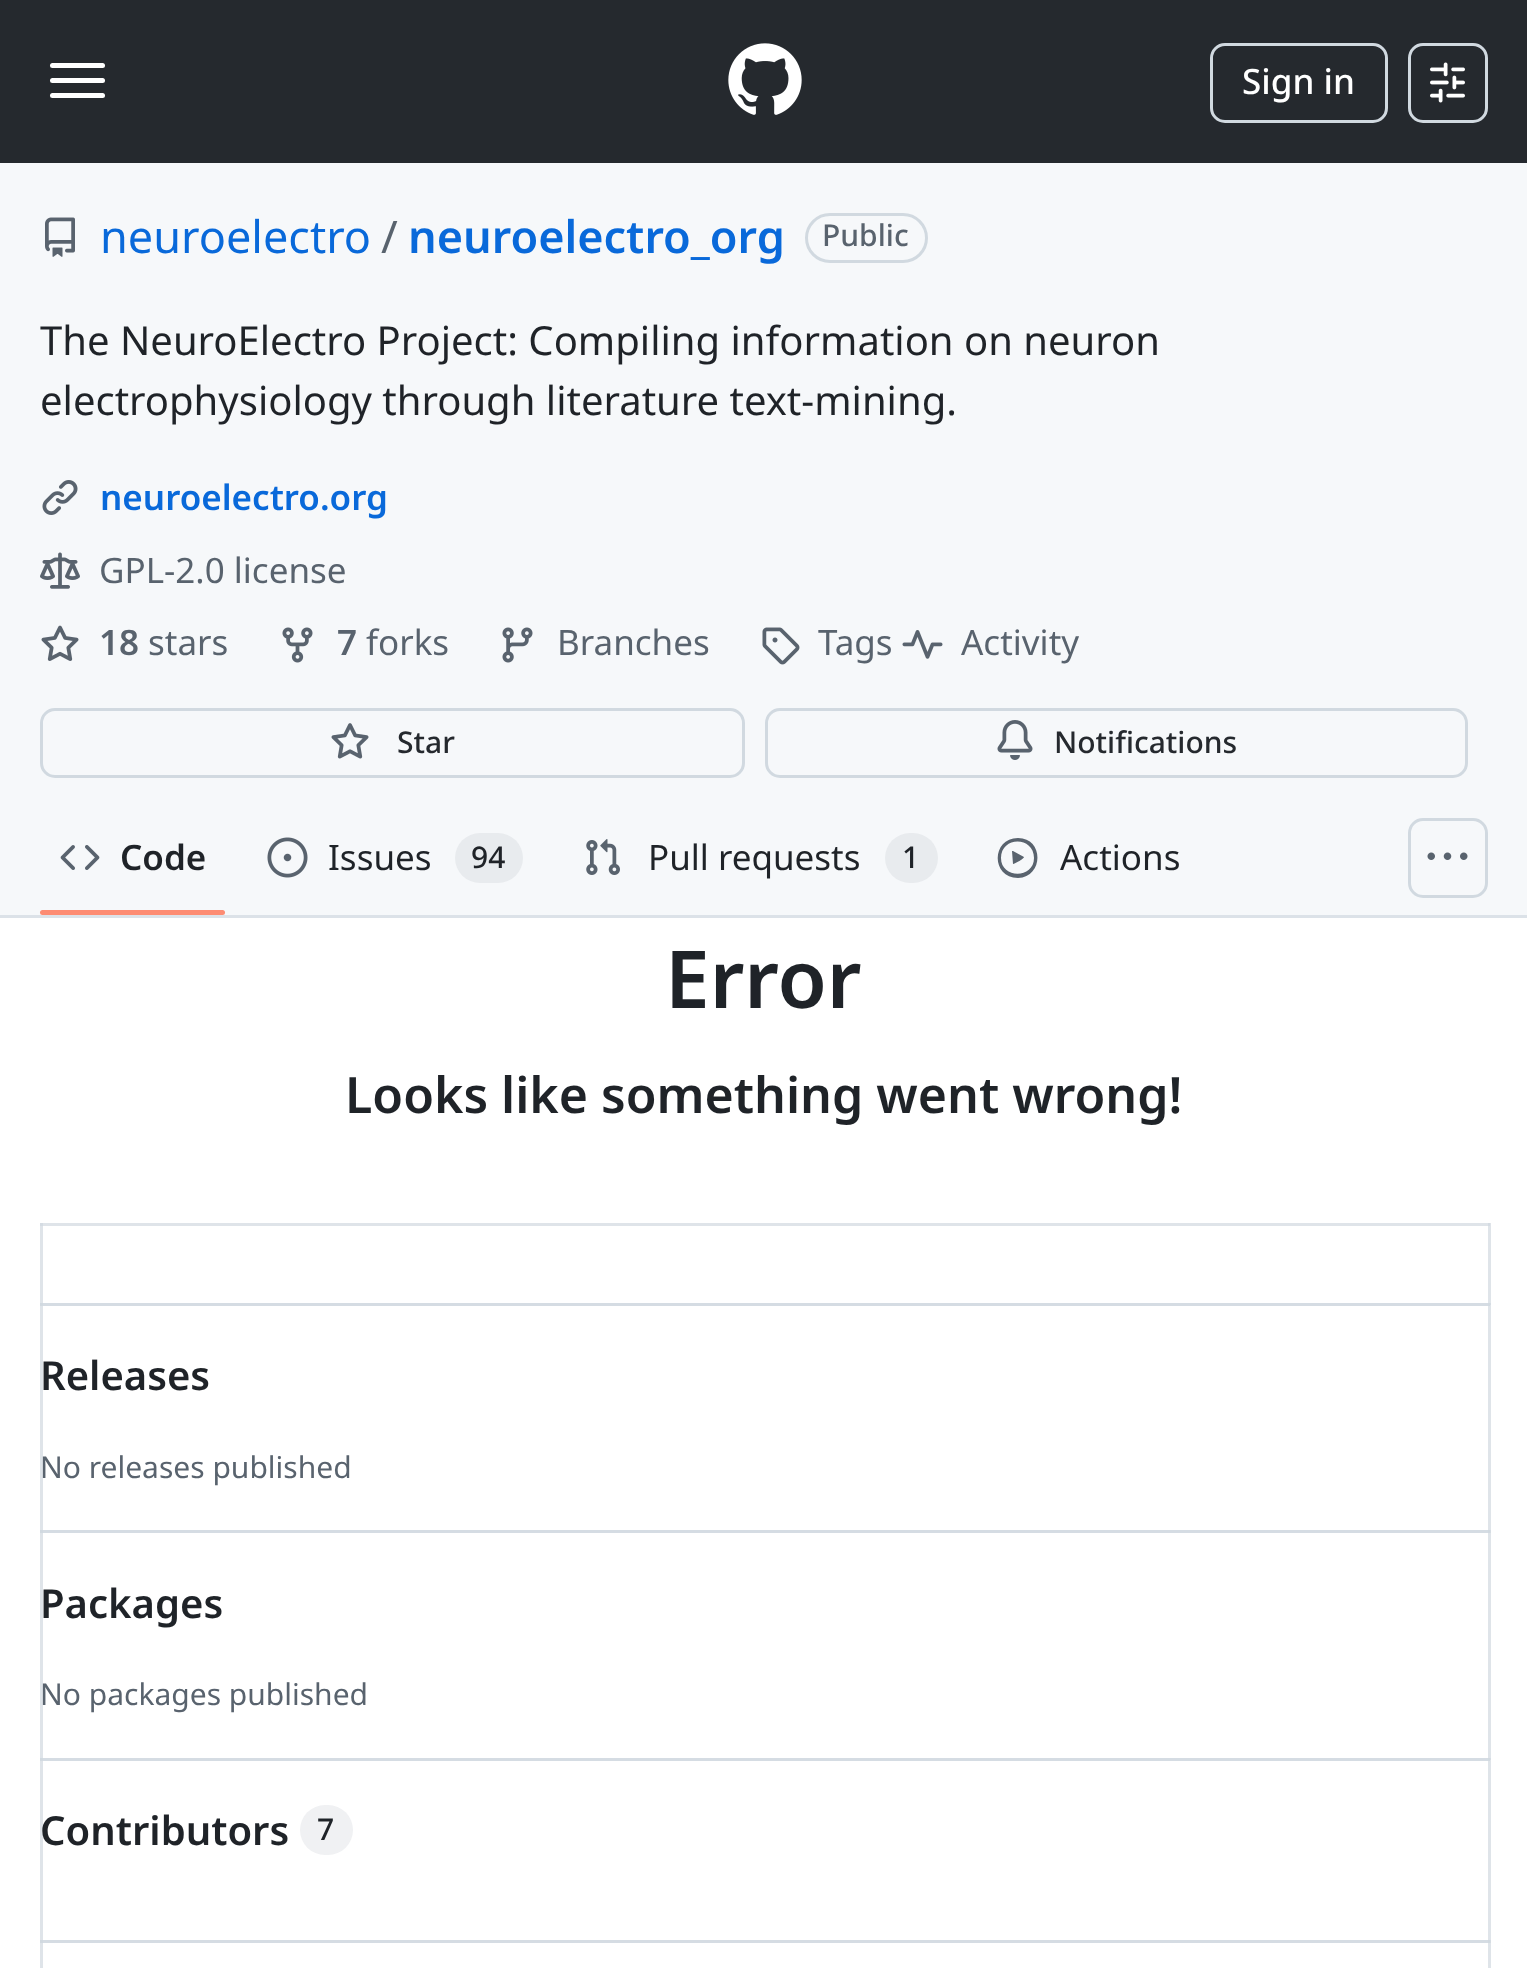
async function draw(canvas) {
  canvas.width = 1527;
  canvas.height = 1968;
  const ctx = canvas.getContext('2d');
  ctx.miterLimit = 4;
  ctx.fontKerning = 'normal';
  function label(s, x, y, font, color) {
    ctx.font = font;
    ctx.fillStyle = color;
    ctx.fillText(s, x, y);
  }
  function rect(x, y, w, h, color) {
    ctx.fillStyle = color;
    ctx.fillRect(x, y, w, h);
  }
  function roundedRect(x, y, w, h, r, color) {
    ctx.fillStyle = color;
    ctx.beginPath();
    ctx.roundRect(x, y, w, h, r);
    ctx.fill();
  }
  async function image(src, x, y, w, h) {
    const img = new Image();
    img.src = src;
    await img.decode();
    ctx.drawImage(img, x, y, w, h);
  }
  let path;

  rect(0, 0, 1527, 1968, '#fff');
  rect(40, 1223, 3, 745, '#dfe4e9');
  rect(1488, 1223, 3, 745, '#dfe4e9');
  rect(1488, 1303, 3, 2, '#d5dce3');
  rect(40, 1530, 1451, 3, '#d5dce3');
  rect(1488, 1758, 3, 2, '#d5dce3');
  rect(40, 1940, 1451, 3, '#d5dce3');
  rect(0, 0, 1527, 163, '#25292e');
  roundedRect(50, 63, 55, 5, 2.5, '#fff');
  roundedRect(50, 78, 55, 5, 2.5, '#fff');
  roundedRect(50, 93, 55, 5, 2.5, '#fff');
  await image('assets/img1.png', 728, 43, 74, 72);
  ctx.beginPath();
  ctx.roundRect(1211.5, 44.5, 175, 77, 13.5);
  ctx.strokeStyle = '#d1d9e0';
  ctx.lineWidth = 3;
  ctx.stroke();
  label('Sign in', 1242, 94, '500 35px Noto Sans', '#fff');
  ctx.beginPath();
  ctx.roundRect(1409.5, 44.5, 77, 77, 13.5);
  ctx.stroke();
  await image('assets/img2.png', 1430, 62, 35, 41);
  rect(0, 163, 1527, 752, '#f6f8fa');
  await image('assets/img3.png', 45, 217, 30, 40);
  label('neuroelectro', 100, 253, '45px Noto Sans', '#0969da');
  label('/', 381, 253, '45px Noto Sans', '#59636e');
  label('neuroelectro_org', 408, 253, '600 45px Noto Sans', '#0969da');
  ctx.beginPath();
  ctx.roundRect(806.5, 214.5, 120, 47, 23.5);
  ctx.stroke();
  label('Public', 822, 246, '500 30px Noto Sans', '#59636e');
  label('The NeuroElectro Project: Compiling information on neuron', 40, 355, '40px Noto Sans', '#1f2328');
  label('electrophysiology through literature text-mining.', 40, 415, '40px Noto Sans', '#1f2328');
  await image('assets/img4.png', 42, 480, 36, 35);
  label('neuroelectro.org', 100, 510, '600 35px Noto Sans', '#0969da');
  await image('assets/img5.png', 40, 552, 40, 37);
  label('GPL-2.0 license', 99, 583, '35px Noto Sans', '#59636e');
  await image('assets/img6.png', 41, 625, 38, 36);
  label('18', 99, 655, '600 35px Noto Sans', '#59636e');
  label('stars', 148, 655, '35px Noto Sans', '#59636e');
  await image('assets/img7.png', 282, 627, 31, 36);
  label('7', 337, 655, '600 35px Noto Sans', '#59636e');
  label('forks', 366, 655, '35px Noto Sans', '#59636e');
  await image('assets/img8.png', 502, 627, 31, 36);
  label('Branches', 557, 655, '35px Noto Sans', '#59636e');
  await image('assets/img9.png', 762, 627, 38, 38);
  label('Tags', 818, 655, '35px Noto Sans', '#59636e');
  await image('assets/img10.png', 902, 630, 41, 29);
  label('Activity', 961, 655, '35px Noto Sans', '#59636e');
  ctx.beginPath();
  ctx.roundRect(41.5, 709.5, 702, 67, 13.5);
  ctx.stroke();
  await image('assets/img11.png', 331, 723, 38, 36);
  label('Star', 397, 753, '500 30px Noto Sans', '#25292e');
  ctx.beginPath();
  ctx.roundRect(766.5, 709.5, 700, 67, 13.5);
  ctx.stroke();
  await image('assets/img12.png', 997, 720, 36, 40);
  label('Notifications', 1054, 753, '500 30px Noto Sans', '#25292e');
  rect(0, 915, 1527, 3, '#dce2e8');
  await image('assets/img13.png', 60, 845, 40, 25);
  label('Code', 120, 870, '600 35px Noto Sans', '#1f2328');
  roundedRect(40, 910, 185, 5, 2.5, '#fd8c73');
  await image('assets/img14.png', 267, 837, 41, 41);
  label('Issues', 328, 870, '35px Noto Sans', '#1f2328');
  roundedRect(455, 833, 68, 50, 25, '#e8ebee');
  label('94', 471, 868, '500 30px Noto Sans', '#1f2328');
  await image('assets/img15.png', 586, 839, 34, 36);
  label('Pull requests', 648, 870, '35px Noto Sans', '#1f2328');
  roundedRect(885, 833, 53, 50, 25, '#e8ebee');
  label('1', 902, 868, '500 30px Noto Sans', '#1f2328');
  ctx.fillStyle = '#59636e';
  path = new Path2D('M1018 838C1044 838 1044 877 1018 878C991 878 991 838 1018 838ZM1001 858C1001 879 1034 879 1034 858C1034 836 1001 836 1001 858ZM1013 851L1024 857C1025 858 1013 865 1013 864L1012 851Z');
  ctx.fill(path);
  label('Actions', 1060, 870, '35px Noto Sans', '#1f2328');
  ctx.beginPath();
  ctx.roundRect(1409.5, 819.5, 77, 77, 13.5);
  ctx.stroke();
  await image('assets/img16.png', 1427, 852, 41, 8);
  label('Error', 665, 1008, '600 80px Noto Sans', '#1f2328');
  label('Looks like something went wrong!', 345, 1113, '600 50px Noto Sans', '#1f2328');
  rect(40, 1223, 1450, 3, '#dfe4e9');
  rect(40, 1223, 3, 3, '#d5dce3');
  rect(1488, 1223, 2, 3, '#d5dce3');
  rect(40, 1303, 1450, 3, '#d5dce3');
  rect(40, 1305, 3, 1, '#d2dae1');
  rect(40, 1303, 3, 2, '#d1d9e0');
  rect(1488, 1303, 2, 3, '#d2dae1');
  label('Releases', 40, 1390, '600 40px Noto Sans', '#1f2328');
  label('No releases published', 40, 1478, '30px Noto Sans', '#59636e');
  rect(40, 1530, 3, 3, '#d1d9e0');
  rect(1488, 1530, 2, 3, '#d1d9e0');
  label('Packages', 40, 1618, '600 40px Noto Sans', '#1f2328');
  label('No packages published', 40, 1705, '30px Noto Sans', '#59636e');
  rect(40, 1758, 1450, 3, '#d5dce3');
  rect(40, 1760, 3, 1, '#d2dae1');
  rect(40, 1758, 3, 2, '#d1d9e0');
  rect(1488, 1758, 2, 3, '#d2dae1');
  label('Contributors', 40, 1845, '600 40px Noto Sans', '#1f2328');
  roundedRect(300, 1805, 53, 50, 25, '#f0f1f3');
  label('7', 317, 1840, '500 30px Noto Sans', '#1f2328');
  rect(40, 1940, 3, 3, '#d1d9e0');
  rect(1488, 1940, 2, 3, '#d1d9e0');
}

draw(document.querySelector('canvas'));
